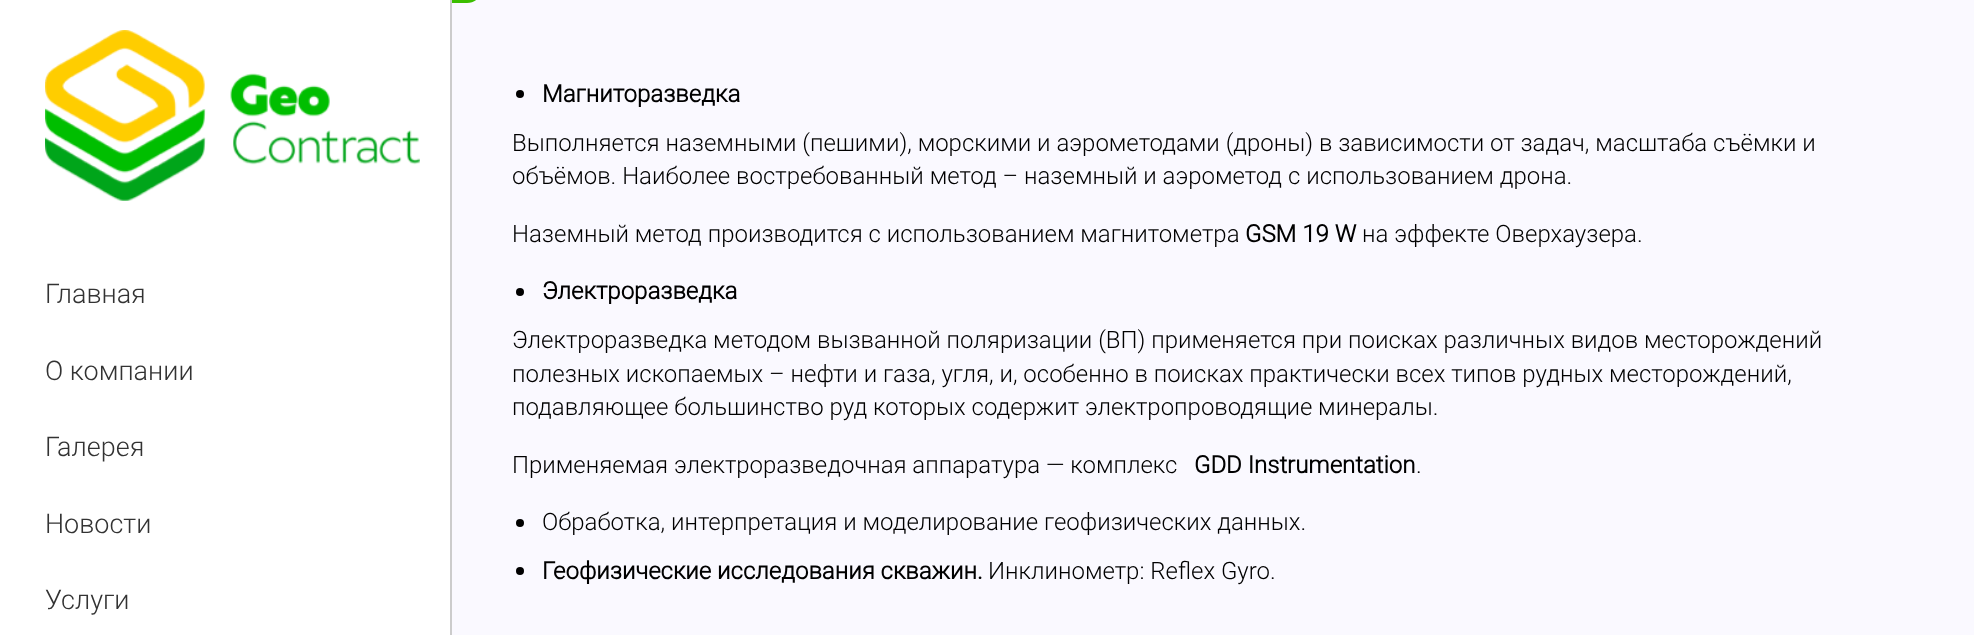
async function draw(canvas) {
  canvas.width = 1974;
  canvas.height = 635;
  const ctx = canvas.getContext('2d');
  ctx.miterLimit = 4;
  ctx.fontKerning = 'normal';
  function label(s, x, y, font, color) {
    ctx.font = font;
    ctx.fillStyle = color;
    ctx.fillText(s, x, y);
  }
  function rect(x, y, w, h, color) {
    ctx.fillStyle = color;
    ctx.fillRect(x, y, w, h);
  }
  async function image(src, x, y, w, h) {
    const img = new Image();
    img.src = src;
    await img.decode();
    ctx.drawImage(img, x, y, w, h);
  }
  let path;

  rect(0, 0, 1974, 635, '#fff');
  await image('assets/img1.png', 45, 30, 375, 171);
  label('Главная', 45, 303, '300 27px Roboto', '#333');
  label('О компании', 45, 380, '300 27px Roboto', '#333');
  label('Галерея', 45, 456, '300 27px Roboto', '#333');
  label('Новости', 45, 533, '300 27px Roboto', '#333');
  label('Услуги', 45, 609, '300 27px Roboto', '#333');
  rect(452, 0, 1522, 635, '#faf9ff');
  rect(450, 0, 2, 635, '#ccc');
  ctx.fillStyle = '#3bbe00';
  path = new Path2D('M452-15H467C475.5-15 482-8.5 482 0V-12C482-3.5 475.5 3 467 3H452Z');
  ctx.fill(path);
  ctx.fillStyle = '#000';
  ctx.beginPath();
  ctx.arc(520, 94, 4, 0, 2 * Math.PI);
  ctx.fill();
  label('Магниторазведка', 542, 102, 'bold 24px Roboto', '#000');
  label('Выполняется наземными (пешими), морскими и аэрометодами (дроны) в зависимости от задач, масштаба съёмки и', 512, 151, '300 24px Roboto', '#000');
  label('объёмов. Наиболее востребованный метод – наземный и аэрометод с использованием дрона.', 512, 184, '300 24px Roboto', '#000');
  label('Наземный метод производится с использованием магнитометра', 512, 242, '300 24px Roboto', '#000');
  label('GSM 19 W', 1245, 242, 'bold 24px Roboto', '#000');
  label('на эффекте Оверхаузера.', 1362, 242, '300 24px Roboto', '#000');
  ctx.beginPath();
  ctx.arc(520, 292, 4, 0, 2 * Math.PI);
  ctx.fill();
  label('Электроразведка', 542, 299, 'bold 24px Roboto', '#000');
  label('Электроразведка методом вызванной поляризации (ВП) применяется при поисках различных видов месторождений', 512, 348, '300 24px Roboto', '#000');
  label('полезных ископаемых – нефти и газа, угля, и, особенно в поисках практически всех типов рудных месторождений,', 512, 382, '300 24px Roboto', '#000');
  label('подавляющее большинство руд которых содержит электропроводящие минералы.', 512, 415, '300 24px Roboto', '#000');
  label('Применяемая электроразведочная аппаратура — комплекс', 512, 473, '300 24px Roboto', '#000');
  label('GDD Instrumentation', 1194, 473, 'bold 24px Roboto', '#000');
  label('.', 1416, 473, '300 24px Roboto', '#000');
  ctx.beginPath();
  ctx.arc(520, 523, 4, 0, 2 * Math.PI);
  ctx.fill();
  label('Обработка, интерпретация и моделирование геофизических данных.', 542, 530, '300 24px Roboto', '#000');
  ctx.beginPath();
  ctx.arc(520, 571, 4, 0, 2 * Math.PI);
  ctx.fill();
  label('Геофизические исследования скважин.', 542, 579, 'bold 24px Roboto', '#000');
  label('Инклинометр: Reflex Gyro.', 988, 579, '300 24px Roboto', '#000');
}

draw(document.querySelector('canvas'));
